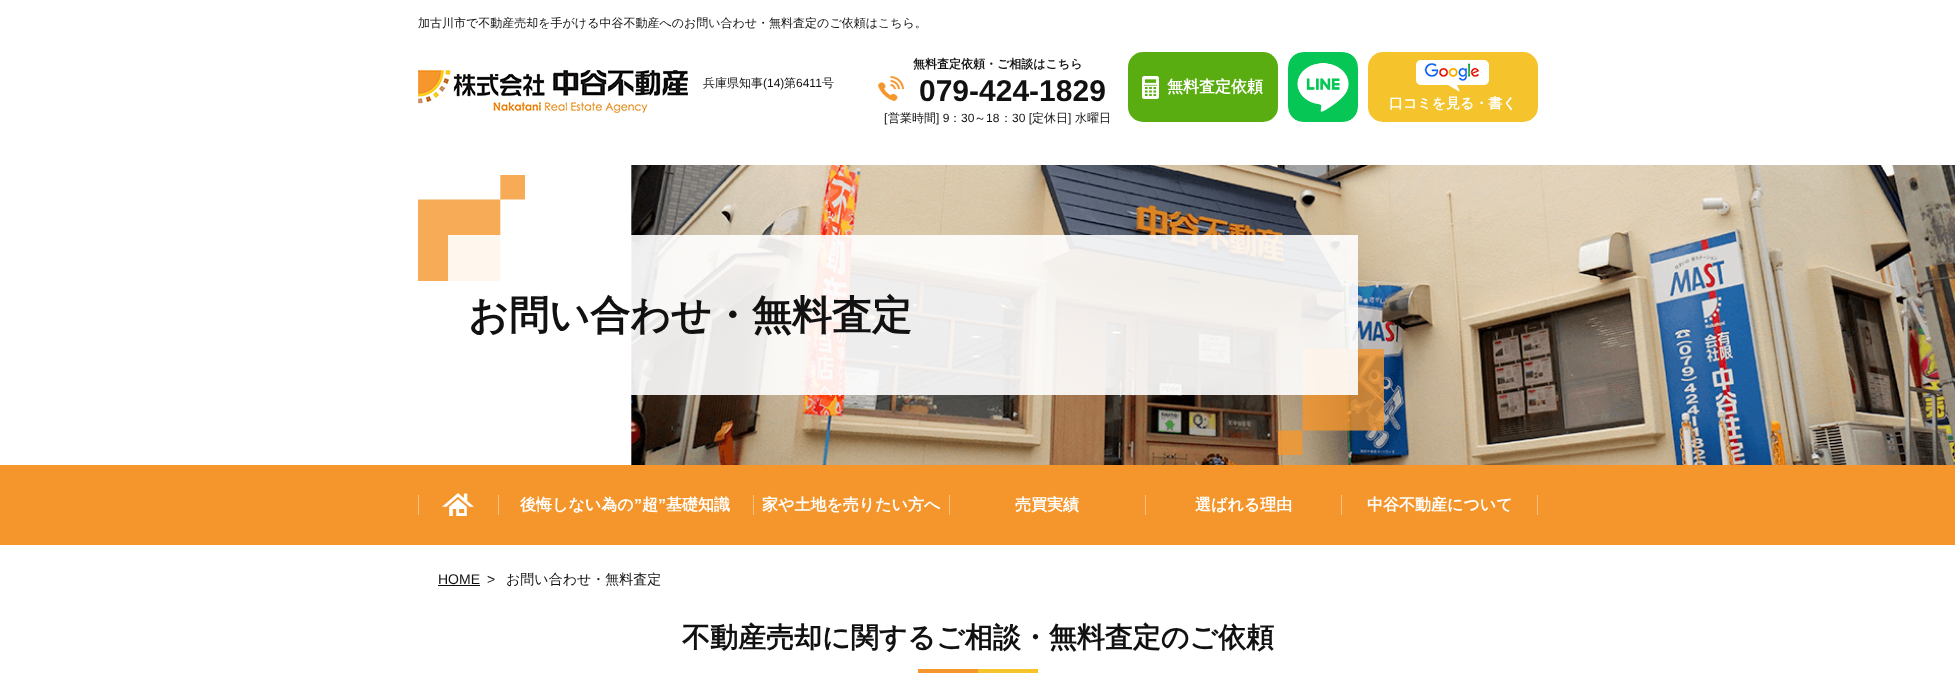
async function draw(canvas) {
  canvas.width = 1955;
  canvas.height = 684;
  const ctx = canvas.getContext('2d');
  ctx.miterLimit = 4;
  ctx.fontKerning = 'normal';
  function label(s, x, y, font, color) {
    ctx.font = font;
    ctx.fillStyle = color;
    ctx.fillText(s, x, y);
  }
  function rect(x, y, w, h, color) {
    ctx.fillStyle = color;
    ctx.fillRect(x, y, w, h);
  }
  function roundedRect(x, y, w, h, r, color) {
    ctx.fillStyle = color;
    ctx.beginPath();
    ctx.roundRect(x, y, w, h, r);
    ctx.fill();
  }
  async function image(src, x, y, w, h) {
    const img = new Image();
    img.src = src;
    await img.decode();
    ctx.drawImage(img, x, y, w, h);
  }

  rect(0, 0, 1955, 684, '#fff');
  label('加古川市で不動産売却を手がける中谷不動産へのお問い合わせ・無料査定のご依頼はこちら。', 418, 27, '500 12px WenQuanYi Zen Hei', '#111');
  await image('assets/img1.png', 418, 70, 270, 43);
  label('兵庫県知事', 703, 87, '500 12px WenQuanYi Zen Hei', '#111');
  label('(14)', 763, 87, '12px Liberation Sans', '#111');
  label('第', 784, 87, '500 12px WenQuanYi Zen Hei', '#111');
  label('6411', 796, 87, '12px Liberation Sans', '#111');
  label('号', 822, 87, '500 12px WenQuanYi Zen Hei', '#111');
  label('無料査定依頼・ご相談はこちら', 913, 68, 'bold 12px WenQuanYi Zen Hei', '#111');
  await image('assets/img2.png', 878, 76, 26, 25);
  label('079-424-1829', 919, 101, 'bold 30px Liberation Sans', '#111');
  label('[', 884, 122, '12px Liberation Sans', '#111');
  label('営業時間', 888, 122, '500 12px WenQuanYi Zen Hei', '#111');
  label('] 9', 936, 122, '12px Liberation Sans', '#111');
  label('：', 949, 122, '500 12px WenQuanYi Zen Hei', '#111');
  label('30', 961, 122, '12px Liberation Sans', '#111');
  label('～', 974, 122, '500 12px WenQuanYi Zen Hei', '#111');
  label('18', 986, 122, '12px Liberation Sans', '#111');
  label('：', 1000, 122, '500 12px WenQuanYi Zen Hei', '#111');
  label('30 [', 1012, 122, '12px Liberation Sans', '#111');
  label('定休日', 1032, 122, '500 12px WenQuanYi Zen Hei', '#111');
  label(']', 1068, 122, '12px Liberation Sans', '#111');
  label('水曜日', 1075, 122, '500 12px WenQuanYi Zen Hei', '#111');
  roundedRect(1128, 52, 150, 70, 15, '#5aad10');
  await image('assets/img3.png', 1142, 76, 17, 23);
  label('無料査定依頼', 1167, 92, 'bold 16px WenQuanYi Zen Hei', '#fff');
  await image('assets/img4.png', 1288, 52, 70, 70);
  roundedRect(1368, 52, 170, 70, 15, '#f5c32c');
  await image('assets/img5.png', 1416, 60, 73, 32);
  label('口コミを見る・書く', 1389, 108, 'bold 14px WenQuanYi Zen Hei', '#fff');
  await image('assets/img6.png', 631, 165, 1324, 300);
  await image('assets/img7.png', 418, 175, 966, 280);
  rect(448, 235, 910, 160, '#ffffffe6');
  label('お問い合わせ・無料査定', 468, 329, 'bold 40px WenQuanYi Zen Hei', '#111');
  rect(0, 465, 1955, 80, '#f5962c');
  rect(418, 495, 1, 20, '#f9c080');
  await image('assets/img8.png', 442, 493, 32, 23);
  rect(498, 495, 1, 20, '#f9c080');
  label('後悔しない為の', 520, 510, 'bold 16px WenQuanYi Zen Hei', '#fff');
  label('”', 634, 510, 'bold 16px Liberation Sans', '#fff');
  label('超', 642, 510, 'bold 16px WenQuanYi Zen Hei', '#fff');
  label('”', 658, 510, 'bold 16px Liberation Sans', '#fff');
  label('基礎知識', 666, 510, 'bold 16px WenQuanYi Zen Hei', '#fff');
  rect(753, 495, 1, 20, '#f9c080');
  label('家や土地を売りたい方へ', 762, 510, 'bold 16px WenQuanYi Zen Hei', '#fff');
  rect(949, 495, 1, 20, '#f9c080');
  label('売買実績', 1015, 510, 'bold 16px WenQuanYi Zen Hei', '#fff');
  rect(1145, 495, 1, 20, '#f9c080');
  label('選ばれる理由', 1195, 510, 'bold 16px WenQuanYi Zen Hei', '#fff');
  rect(1341, 495, 1, 20, '#f9c080');
  label('中谷不動産について', 1367, 510, 'bold 16px WenQuanYi Zen Hei', '#fff');
  rect(1537, 495, 1, 20, '#f9c080');
  label('HOME', 438, 584, '14px Liberation Sans', '#111');
  rect(438, 585, 42, 1, '#111');
  label('>', 487, 584, '14px Liberation Sans', '#111');
  label('お問い合わせ・無料査定', 506, 584, '500 14px WenQuanYi Zen Hei', '#111');
  label('不動産売却に関するご相談・無料査定のご依頼', 682, 647, 'bold 28px WenQuanYi Zen Hei', '#111');
  rect(918, 669, 60, 4, '#f5962c');
  rect(978, 669, 60, 4, '#f5c32c');
}

draw(document.querySelector('canvas'));
